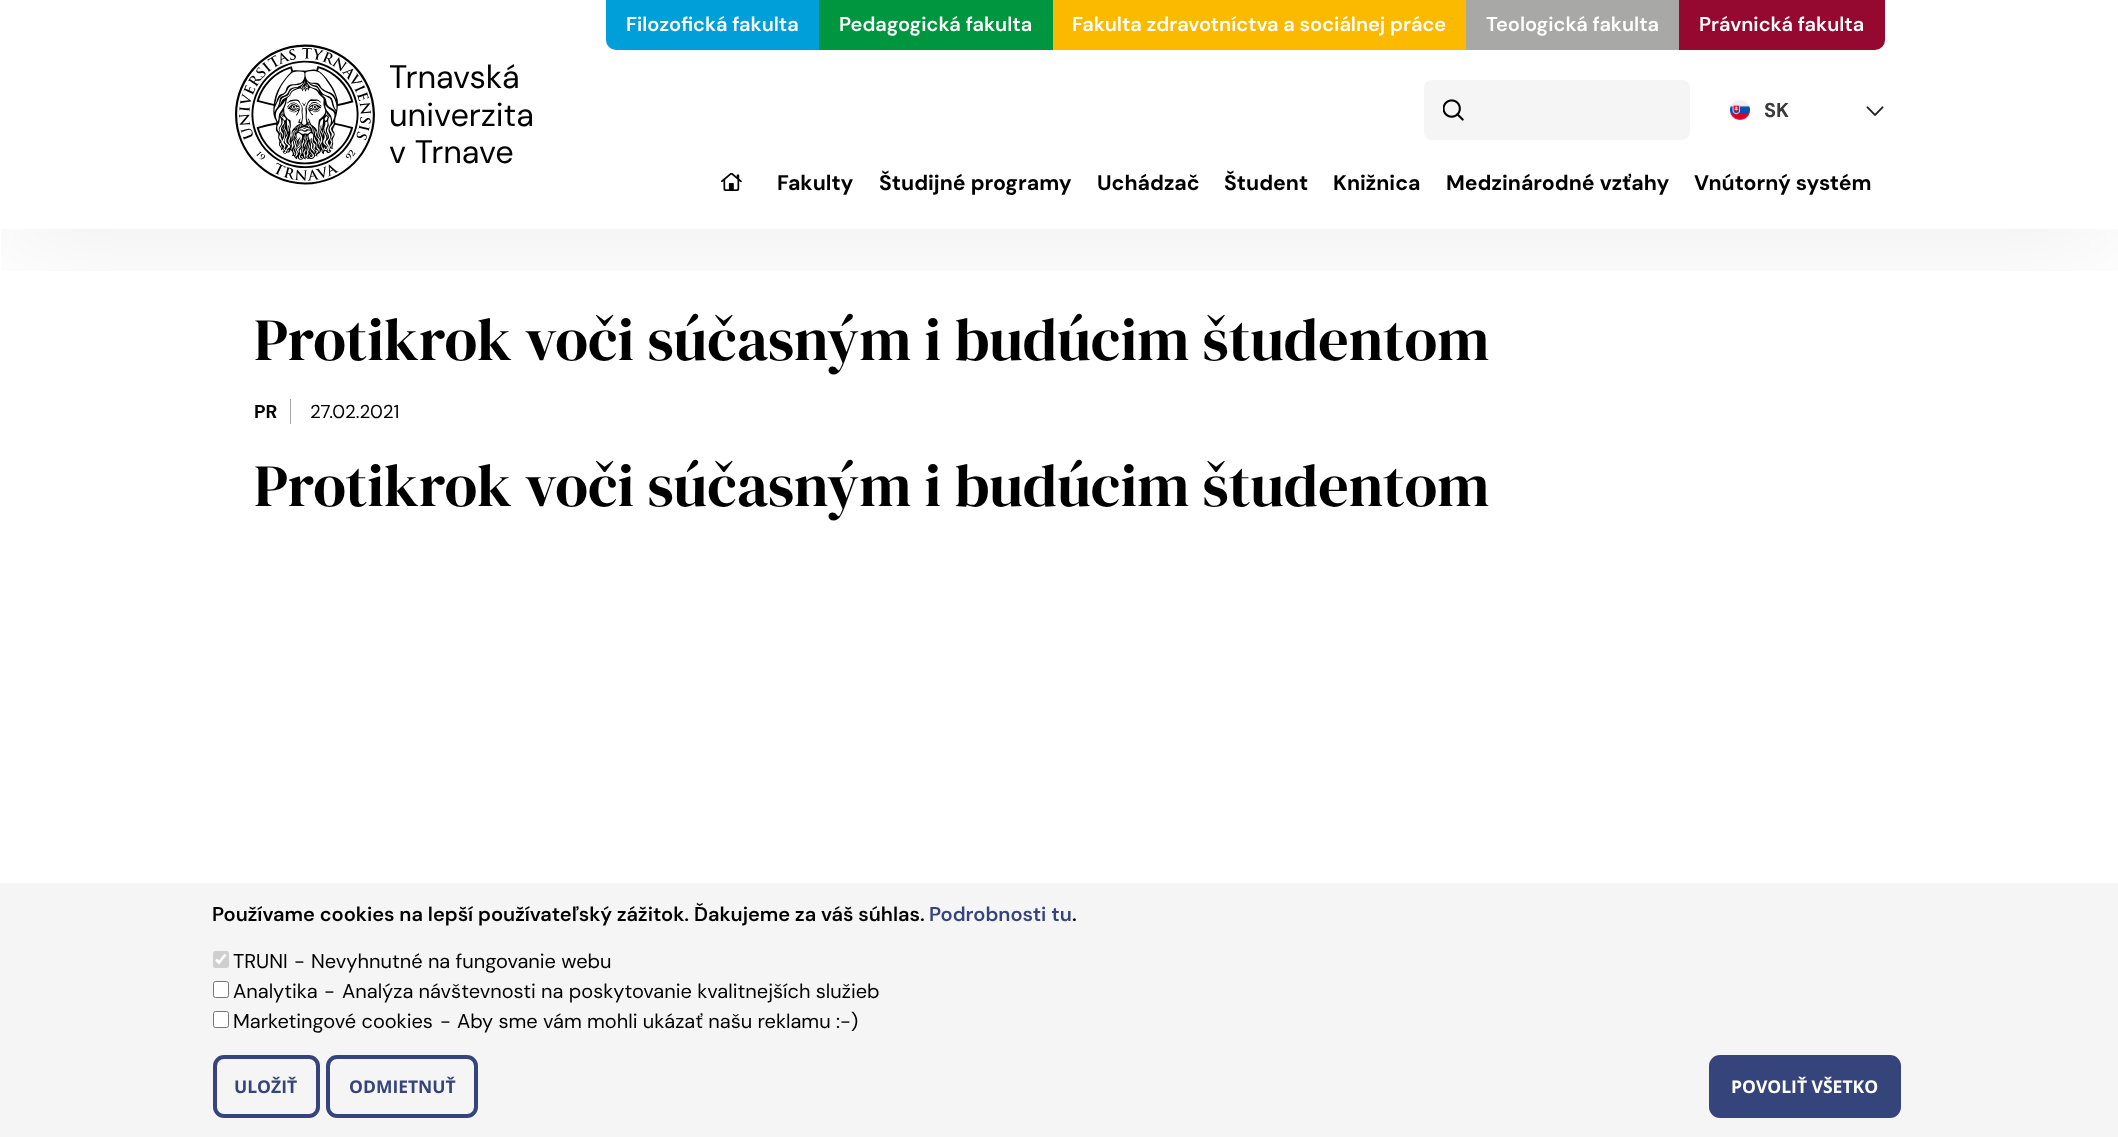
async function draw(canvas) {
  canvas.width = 2118;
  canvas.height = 1137;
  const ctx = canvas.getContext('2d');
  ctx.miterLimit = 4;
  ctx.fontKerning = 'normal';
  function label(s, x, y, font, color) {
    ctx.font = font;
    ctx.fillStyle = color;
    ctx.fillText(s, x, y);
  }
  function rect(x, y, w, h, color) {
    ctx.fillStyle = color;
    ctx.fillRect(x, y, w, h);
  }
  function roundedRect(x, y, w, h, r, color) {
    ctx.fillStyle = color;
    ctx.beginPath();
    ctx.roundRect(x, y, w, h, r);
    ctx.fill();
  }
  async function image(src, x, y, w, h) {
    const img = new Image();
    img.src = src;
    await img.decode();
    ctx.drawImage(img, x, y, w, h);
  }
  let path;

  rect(0, 0, 2118, 1137, '#fff');
  ctx.save();
  ctx.beginPath();
  ctx.rect(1, 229, 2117, 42);
  ctx.clip();
  ctx.fillStyle = '#00000014';
  ctx.filter = 'blur(62.5px)';
  ctx.beginPath();
  ctx.rect(0, 0, 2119, 229);
  ctx.fill();
  ctx.filter = 'none';
  ctx.restore();
  await image('assets/img1.png', 235, 44, 140, 141);
  label('Trnavská', 389, 88, '32.5px DM Sans', '#000');
  label('univerzita', 389, 126, '32.5px DM Sans', '#000');
  label('v Trnave', 389, 163, '32.5px DM Sans', '#000');
  ctx.fillStyle = '#009fda';
  ctx.beginPath();
  ctx.roundRect(606, 0, 213, 50, [0, 0, 0, 10]);
  ctx.fill();
  label('Filozofická fakulta', 626, 31, '600 20px DM Sans', '#fff');
  rect(819, 0, 234, 50, '#009640');
  label('Pedagogická fakulta', 839, 31, '600 20px DM Sans', '#fff');
  rect(1053, 0, 413, 50, '#fbba00');
  label('Fakulta zdravotníctva a sociálnej práce', 1072, 31, '600 20px DM Sans', '#fff');
  rect(1466, 0, 213, 50, '#a8a8a7');
  label('Teologická fakulta', 1486, 31, '600 20px DM Sans', '#fff');
  ctx.fillStyle = '#95082f';
  ctx.beginPath();
  ctx.roundRect(1679, 0, 206, 50, [0, 0, 10, 0]);
  ctx.fill();
  label('Právnická fakulta', 1699, 31, '600 20px DM Sans', '#fff');
  roundedRect(1424, 80, 266, 60, 8, '#f5f5f5');
  await image('assets/img2.png', 1443, 99, 21, 22);
  await image('assets/img3.png', 1730, 100, 20, 20);
  label('SK', 1764, 117, 'bold 20px DM Sans', '#3a3a3a');
  await image('assets/img4.png', 1866, 106, 18, 10);
  await image('assets/img5.png', 721, 173, 21, 18);
  label('Fakulty', 777, 190, 'bold 21.25px DM Sans', '#000');
  label('Študijné programy', 879, 190, 'bold 21.25px DM Sans', '#000');
  label('Uchádzač', 1097, 190, 'bold 21.25px DM Sans', '#000');
  label('Študent', 1224, 190, 'bold 21.25px DM Sans', '#000');
  label('Knižnica', 1333, 190, 'bold 21.25px DM Sans', '#000');
  label('Medzinárodné vzťahy', 1446, 190, 'bold 21.25px DM Sans', '#000');
  label('Vnútorný systém', 1694, 190, 'bold 21.25px DM Sans', '#000');
  label('Protikrok voči súčasným i budúcim študentom', 254, 360, '60px DM Serif Display', '#000');
  label('PR', 254, 418, 'bold 18.75px DM Sans', '#000');
  rect(290, 399, 1, 25, '#a8a8a7');
  label('27.02.2021', 310, 418, '18.75px DM Sans', '#000');
  label('Protikrok voči súčasným i budúcim študentom', 254, 506, '60px DM Serif Display', '#000');
  rect(0, 883, 2118, 254, '#f5f5f5');
  label('Používame cookies na lepší používateľský zážitok. Ďakujeme za váš súhlas.', 212, 921, '600 20px DM Sans', '#000');
  label('Podrobnosti tu', 929, 921, '600 20px DM Sans', '#35457c');
  label('.', 1072, 921, '600 20px DM Sans', '#000');
  roundedRect(213, 951, 16, 17, 2.5, '#cfcfcf');
  path = new Path2D('M216 959.5L219 962.5L225.5 954.5');
  ctx.strokeStyle = '#fff';
  ctx.lineWidth = 2.6;
  ctx.stroke(path);
  label('TRUNI', 233, 968, '20px DM Sans', '#000');
  label('-', 294, 968, '20px DM Sans', '#000');
  label('Nevyhnutné na fungovanie webu', 311, 968, '20px DM Sans', '#000');
  ctx.fillStyle = '#fff';
  ctx.beginPath();
  ctx.roundRect(213.5, 981.5, 15, 16, 2);
  ctx.fill();
  ctx.strokeStyle = '#767676';
  ctx.lineWidth = 1;
  ctx.stroke();
  label('Analytika', 233, 998, '20px DM Sans', '#000');
  label('-', 324, 998, '20px DM Sans', '#000');
  label('Analýza návštevnosti na poskytovanie kvalitnejších služieb', 342, 998, '20px DM Sans', '#000');
  ctx.fillStyle = '#fff';
  ctx.beginPath();
  ctx.roundRect(213.5, 1011.5, 15, 16, 2);
  ctx.fill();
  ctx.stroke();
  label('Marketingové cookies', 233, 1028, '20px DM Sans', '#000');
  label('-', 440, 1028, '20px DM Sans', '#000');
  label('Aby sme vám mohli ukázať našu reklamu :-)', 457, 1028, '20px DM Sans', '#000');
  ctx.beginPath();
  ctx.roundRect(215, 1057, 103, 59, 9);
  ctx.strokeStyle = '#35457c';
  ctx.lineWidth = 4;
  ctx.stroke();
  label('ULOŽIŤ', 234, 1093, 'bold 17.5px Open Sans', '#35457c');
  ctx.beginPath();
  ctx.roundRect(328, 1057, 148, 59, 9);
  ctx.stroke();
  label('ODMIETNUŤ', 349, 1093, 'bold 17.5px Open Sans', '#35457c');
  ctx.beginPath();
  ctx.roundRect(1711, 1057, 188, 59, 9);
  ctx.fill();
  ctx.stroke();
  label('POVOLIŤ VŠETKO', 1731, 1093, 'bold 17.5px Open Sans', '#fff');
}

draw(document.querySelector('canvas'));
